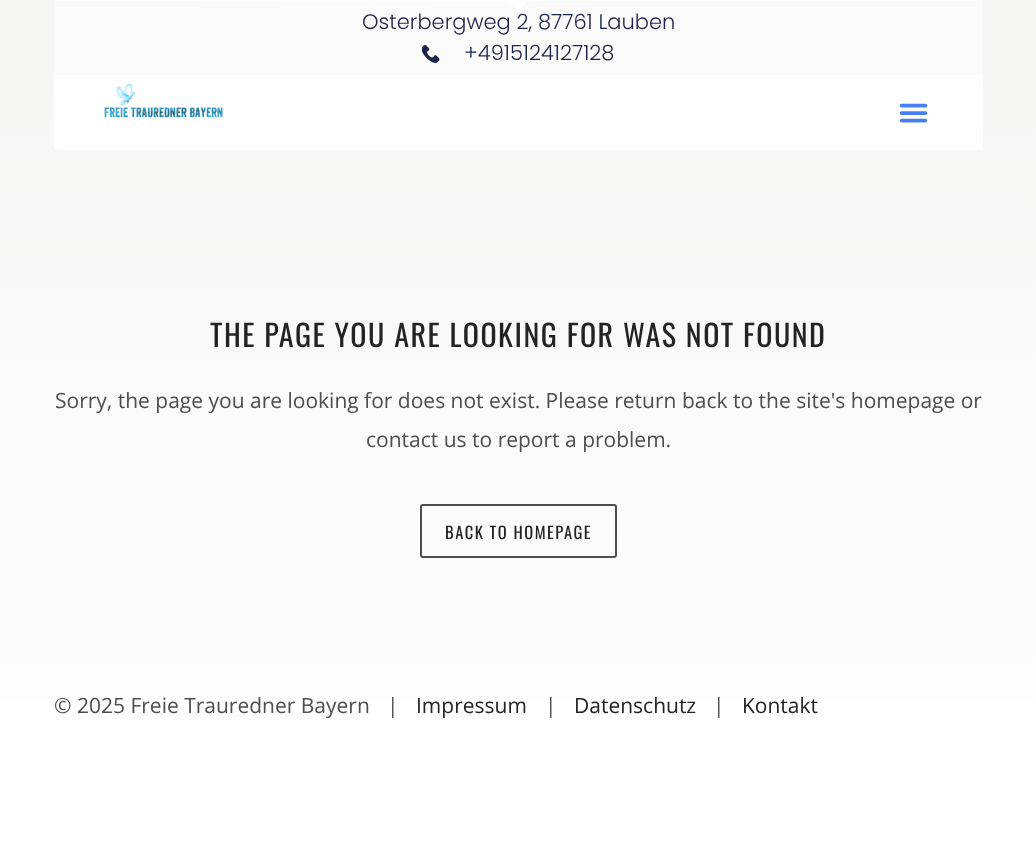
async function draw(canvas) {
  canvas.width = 1036;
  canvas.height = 864;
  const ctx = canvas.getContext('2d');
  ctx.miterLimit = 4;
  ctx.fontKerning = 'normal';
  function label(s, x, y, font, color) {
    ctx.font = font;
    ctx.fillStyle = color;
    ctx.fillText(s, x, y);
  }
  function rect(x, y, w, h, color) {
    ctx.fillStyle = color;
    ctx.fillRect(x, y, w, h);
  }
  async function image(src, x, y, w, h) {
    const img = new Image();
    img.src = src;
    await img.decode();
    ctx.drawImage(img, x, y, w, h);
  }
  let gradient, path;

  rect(0, 0, 1036, 864, '#fff');
  gradient = ctx.createLinearGradient(518, 0, 518, 864);
  gradient.addColorStop(0, '#f7f5f2');
  gradient.addColorStop(1, '#fff');
  ctx.fillStyle = gradient;
  ctx.fillRect(0, 0, 1036, 698);
  rect(54, 1, 929, 74, '#fafafa');
  ctx.fillStyle = '#fff';
  path = new Path2D('M54-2V1L507 2C514 3 519 9 519 17C519 8 526 1 534 1H984V-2Z');
  ctx.fill(path);
  label('Osterbergweg 2, 87761 Lauben', 362, 29, '300 21px Poppins', '#1c244b');
  await image('assets/img1.png', 422, 45, 18, 18);
  label('+4915124127128', 464, 60, '300 21px Poppins', '#1c244b');
  rect(54, 75, 929, 75, '#fff');
  await image('assets/img2.png', 104, 83, 119, 35);
  await image('assets/img3.png', 899, 103, 29, 20);
  ctx.letterSpacing = '1.5px';
  label('THE PAGE YOU ARE LOOKING FOR WAS NOT FOUND', 210, 347, '30px Oswald', '#232323');
  ctx.letterSpacing = '0px';
  label('Sorry, the page you are looking for does not exist. Please return back to the site\'s homepage or', 55, 408, '21px Open Sans', '#4e4e4e');
  label('contact us to report a problem.', 366, 447, '21px Open Sans', '#4e4e4e');
  ctx.beginPath();
  ctx.roundRect(421, 505, 195, 52, 2);
  ctx.strokeStyle = '#4e4e4e';
  ctx.lineWidth = 2;
  ctx.stroke();
  ctx.letterSpacing = '1.5px';
  label('BACK TO HOMEPAGE', 445, 539, '16.5px Oswald', '#232323');
  ctx.letterSpacing = '0px';
  label('© 2025 Freie Trauredner Bayern', 54, 713, '21px Open Sans', '#4e4e4e');
  label('|', 387, 713, '21px Open Sans', '#4e4e4e');
  label('Impressum', 416, 713, '21px Open Sans', '#232323');
  label('|', 545, 713, '21px Open Sans', '#4e4e4e');
  label('Datenschutz', 574, 713, '21px Open Sans', '#232323');
  label('|', 713, 713, '21px Open Sans', '#4e4e4e');
  label('Kontakt', 742, 713, '21px Open Sans', '#232323');
}

draw(document.querySelector('canvas'));
